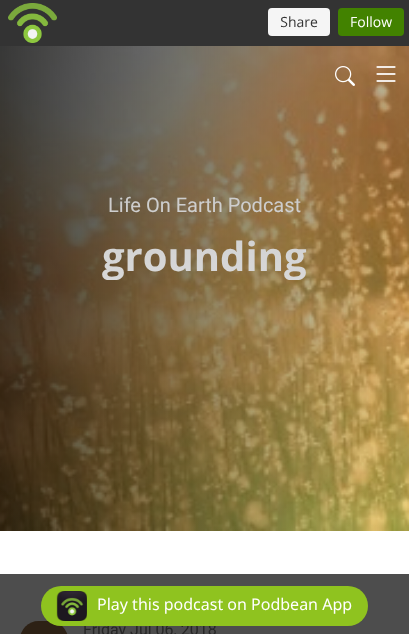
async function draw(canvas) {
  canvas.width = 409;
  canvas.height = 634;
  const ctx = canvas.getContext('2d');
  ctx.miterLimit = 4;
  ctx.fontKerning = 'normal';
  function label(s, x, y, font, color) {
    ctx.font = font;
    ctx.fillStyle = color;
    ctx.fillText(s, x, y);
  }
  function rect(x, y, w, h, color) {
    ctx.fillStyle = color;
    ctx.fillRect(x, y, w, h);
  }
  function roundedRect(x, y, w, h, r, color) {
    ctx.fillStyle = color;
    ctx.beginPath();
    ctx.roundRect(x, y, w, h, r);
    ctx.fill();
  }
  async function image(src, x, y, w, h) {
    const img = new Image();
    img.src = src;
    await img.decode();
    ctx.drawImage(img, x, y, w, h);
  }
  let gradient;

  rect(0, 0, 409, 634, '#fff');
  rect(0, 574, 409, 60, '#4d4d4d');
  rect(0, 0, 409, 46, '#333');
  await image('assets/img1.png', 8, 3, 396, 40);
  await image('assets/img4.png', 0, 46, 409, 485);
  label('Life On Earth Podcast', 108, 212, '20px Roboto', '#fff');
  ctx.save();
  ctx.beginPath();
  ctx.rect(12, 224, 385, 56);
  ctx.clip();
  label('grounding', 102, 271, 'bold 40px Open Sans', '#fff');
  ctx.restore();
  gradient = ctx.createLinearGradient(204, 46, 205, 531);
  gradient.addColorStop(0, '#00000047');
  gradient.addColorStop(0.5, '#00000026');
  gradient.addColorStop(1, '#00000008');
  ctx.fillStyle = gradient;
  ctx.fillRect(0, 46, 409, 485);
  await image('assets/img2.png', 335, 66, 20, 20);
  await image('assets/img3.png', 376, 66, 20, 16);
  roundedRect(20, 621, 48, 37, 24, '#2d2115');
  label('Friday Jul 06, 2018', 83, 635, '16px Roboto', '#272727');
  roundedRect(41, 586, 327, 40, 20, '#8fc31f');
  await image('assets/img5.png', 56, 591, 31, 30);
  label('Play this podcast on Podbean App', 97, 610, '16px Noto Sans', '#fff');
}

draw(document.querySelector('canvas'));
